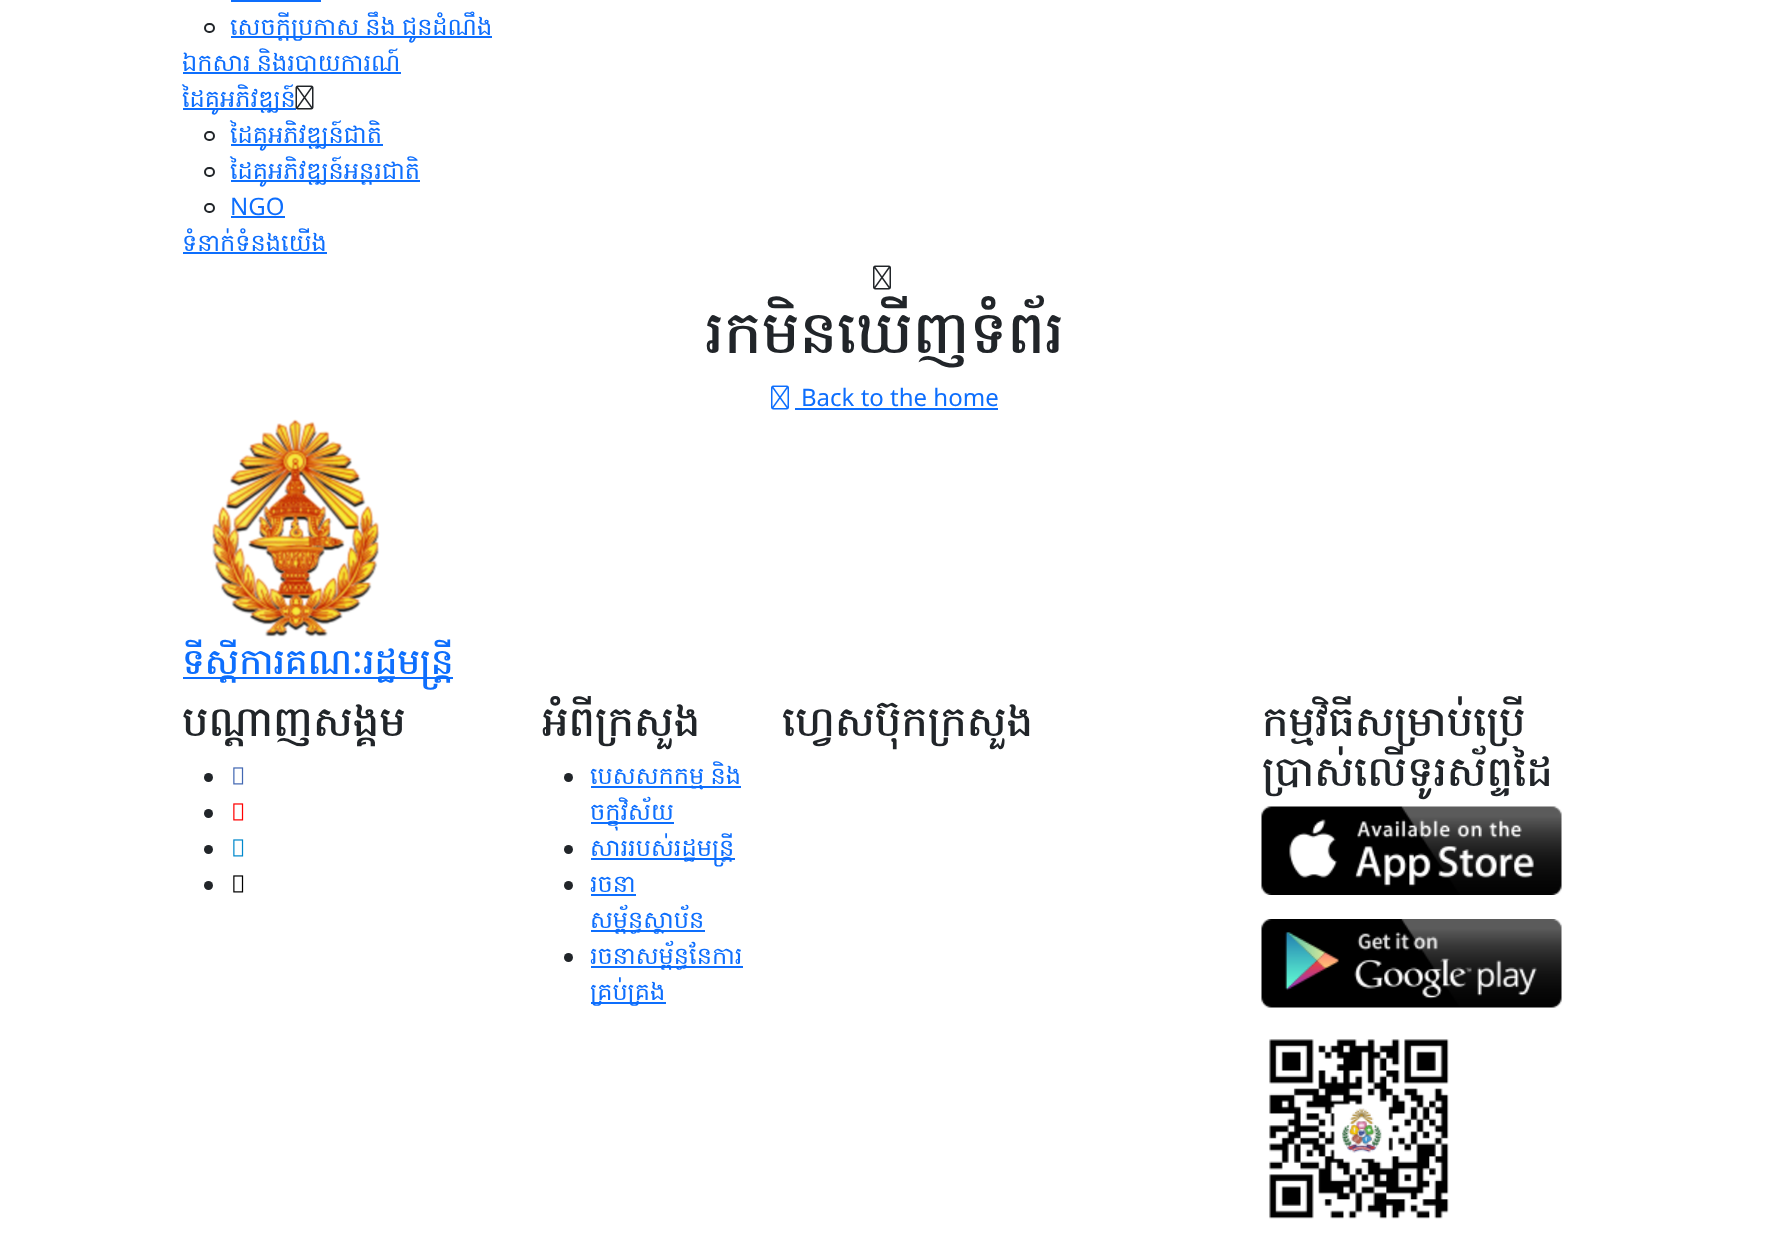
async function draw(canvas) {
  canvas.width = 1768;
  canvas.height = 1246;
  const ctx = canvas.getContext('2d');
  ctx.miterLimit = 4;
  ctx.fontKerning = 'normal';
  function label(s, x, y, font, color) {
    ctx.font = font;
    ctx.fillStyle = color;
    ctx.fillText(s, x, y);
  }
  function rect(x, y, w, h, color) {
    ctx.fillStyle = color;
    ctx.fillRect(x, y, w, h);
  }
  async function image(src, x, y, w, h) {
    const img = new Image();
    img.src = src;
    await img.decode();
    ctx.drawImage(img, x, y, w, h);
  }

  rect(0, 0, 1768, 1246, '#fff');
  rect(231, 0, 90, 2, '#0d6efd');
  ctx.beginPath();
  ctx.roundRect(205, 24, 9, 8, 4);
  ctx.strokeStyle = '#212529';
  ctx.lineWidth = 2;
  ctx.stroke();
  rect(231, 36, 261, 2, '#0d6efd');
  ctx.wordSpacing = '-2px';
  label('សេចក្ដីប្រកាស នឹង ជូនដំណឹង', 230, 35, '24px Hanuman', '#0d6efd');
  label('ឯកសារ និងរបាយការណ៍', 182, 71, '24px Hanuman', '#0d6efd');
  rect(183, 72, 218, 2, '#0d6efd');
  rect(183, 108, 113, 2, '#0d6efd');
  ctx.wordSpacing = '0px';
  label('ដៃគូអភិវឌ្ឍន៍', 182, 107, '24px Hanuman', '#0d6efd');
  await image('assets/img1.png', 295, 85, 19, 25);
  ctx.beginPath();
  ctx.roundRect(205, 132, 9, 8, 4);
  ctx.stroke();
  rect(231, 144, 152, 2, '#0d6efd');
  label('ដៃគូអភិវឌ្ឍន៍ជាតិ', 230, 143, '24px Hanuman', '#0d6efd');
  ctx.beginPath();
  ctx.roundRect(205, 168, 9, 8, 4);
  ctx.stroke();
  rect(231, 180, 189, 2, '#0d6efd');
  label('ដៃគូអភិវឌ្ឍន៍អន្តរជាតិ', 230, 179, '24px Hanuman', '#0d6efd');
  ctx.beginPath();
  ctx.roundRect(205, 204, 9, 8, 4);
  ctx.stroke();
  label('NGO', 230, 215, '24px Noto Sans', '#0d6efd');
  rect(231, 216, 54, 2, '#0d6efd');
  label('ទំនាក់ទំនងយើង', 182, 251, '24px Hanuman', '#0d6efd');
  rect(183, 252, 144, 2, '#0d6efd');
  await image('assets/img2.png', 873, 265, 18, 25);
  label('រកមិនឃើញទំព័រ', 705, 353, '500 59.5px Hanuman', '#212529');
  await image('assets/img3.png', 771, 385, 18, 25);
  label('Back to the home', 801, 406, '24px Noto Sans', '#0d6efd');
  rect(795, 408, 203, 2, '#0d6efd');
  await image('assets/img4.png', 212, 419, 168, 218);
  rect(183, 677, 270, 2, '#0d6efd');
  ctx.save();
  ctx.beginPath();
  ctx.rect(183, 416, 1404, 279);
  ctx.clip();
  label('ទីស្តីការគណៈរដ្ឋមន្រ្តី', 182, 674, '500 36px Hanuman', '#0d6efd');
  ctx.restore();
  label('បណ្ដាញសង្គម', 182, 736, '500 41.75px Hanuman', '#212529');
  ctx.beginPath();
  ctx.arc(208.5, 777.5, 4.5, 0, 2 * Math.PI);
  ctx.fill();
  await image('assets/img5.png', 233, 767, 11, 18);
  ctx.beginPath();
  ctx.arc(208.5, 813.5, 4.5, 0, 2 * Math.PI);
  ctx.fill();
  await image('assets/img6.png', 233, 803, 11, 18);
  ctx.beginPath();
  ctx.arc(208.5, 849.5, 4.5, 0, 2 * Math.PI);
  ctx.fill();
  await image('assets/img7.png', 233, 839, 11, 18);
  ctx.beginPath();
  ctx.arc(208.5, 885.5, 4.5, 0, 2 * Math.PI);
  ctx.fill();
  await image('assets/img8.png', 233, 875, 11, 18);
  label('អំពីក្រសួង', 542, 736, '500 41.75px Hanuman', '#212529');
  ctx.beginPath();
  ctx.arc(568.5, 777.5, 4.5, 0, 2 * Math.PI);
  ctx.fill();
  rect(591, 786, 150, 2, '#0d6efd');
  ctx.wordSpacing = '-2px';
  label('បេសសកកម្ម និង', 590, 784, '24px Hanuman', '#0d6efd');
  rect(591, 822, 83, 2, '#0d6efd');
  ctx.wordSpacing = '0px';
  label('ចក្ខុវិស័យ', 590, 820, '24px Hanuman', '#0d6efd');
  ctx.fillStyle = '#212529';
  ctx.beginPath();
  ctx.arc(568.5, 849.5, 4.5, 0, 2 * Math.PI);
  ctx.fill();
  rect(591, 858, 144, 2, '#0d6efd');
  label('សាររបស់រដ្ឋមន្ត្រី', 590, 856, '24px Hanuman', '#0d6efd');
  ctx.fillStyle = '#212529';
  ctx.beginPath();
  ctx.arc(568.5, 885.5, 4.5, 0, 2 * Math.PI);
  ctx.fill();
  label('រចនា', 590, 892, '24px Hanuman', '#0d6efd');
  rect(591, 894, 45, 2, '#0d6efd');
  rect(591, 930, 114, 2, '#0d6efd');
  label('សម្ព័ន្ធស្ថាប័ន', 590, 928, '24px Hanuman', '#0d6efd');
  ctx.fillStyle = '#212529';
  ctx.beginPath();
  ctx.arc(568.5, 957.5, 4.5, 0, 2 * Math.PI);
  ctx.fill();
  rect(591, 966, 152, 2, '#0d6efd');
  label('រចនាសម្ព័ន្ធនែការ', 590, 964, '24px Hanuman', '#0d6efd');
  rect(591, 1002, 75, 2, '#0d6efd');
  label('គ្រប់គ្រង', 590, 1000, '24px Hanuman', '#0d6efd');
  label('ហ្វេសប៊ុកក្រសួង', 782, 736, '500 41.75px Hanuman', '#212529');
  label('កម្មវិធីសម្រាប់ប្រើ', 1262, 736, '500 41.75px Hanuman', '#212529');
  label('ប្រាស់លើទូរស័ព្ទដៃ', 1262, 786, '500 41.75px Hanuman', '#212529');
  await image('assets/img9.png', 1261, 806, 301, 89);
  await image('assets/img10.png', 1261, 919, 301, 89);
  await image('assets/img11.png', 1269, 1039, 180, 180);
}

draw(document.querySelector('canvas'));
